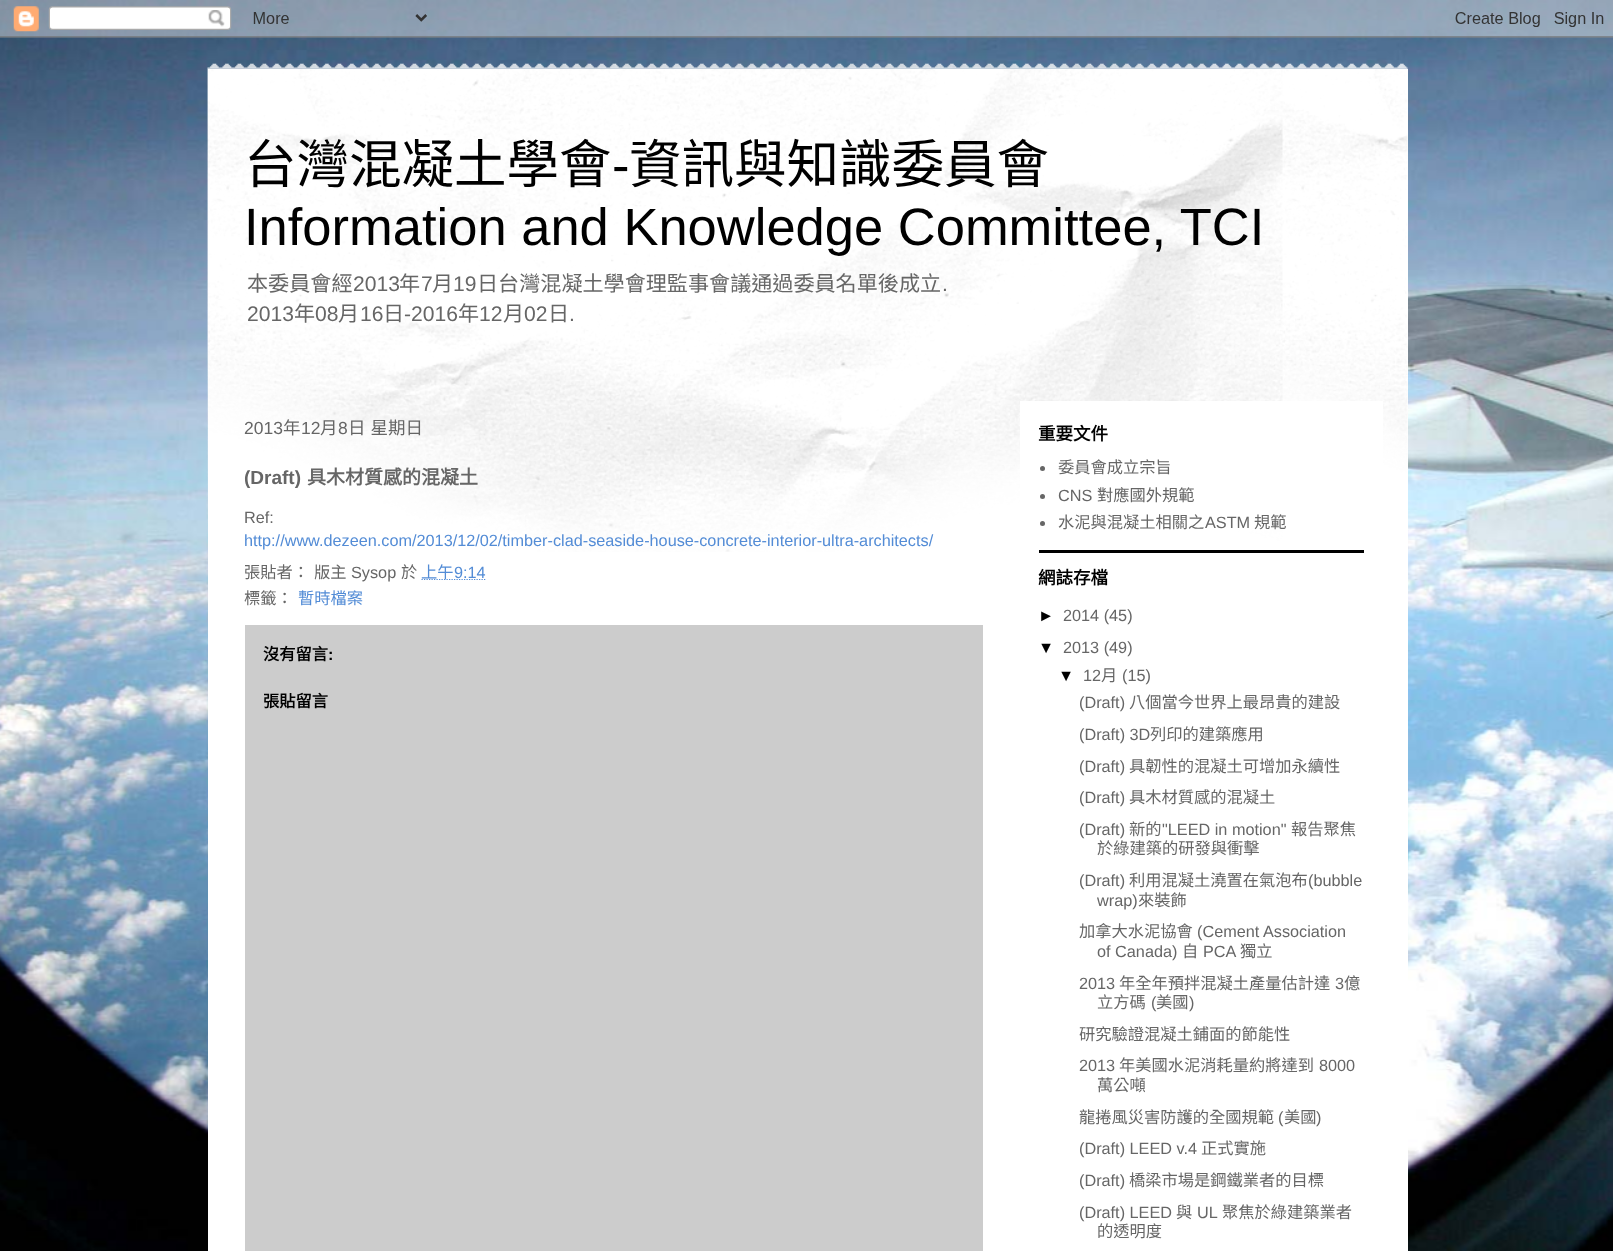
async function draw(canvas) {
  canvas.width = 1613;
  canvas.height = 1251;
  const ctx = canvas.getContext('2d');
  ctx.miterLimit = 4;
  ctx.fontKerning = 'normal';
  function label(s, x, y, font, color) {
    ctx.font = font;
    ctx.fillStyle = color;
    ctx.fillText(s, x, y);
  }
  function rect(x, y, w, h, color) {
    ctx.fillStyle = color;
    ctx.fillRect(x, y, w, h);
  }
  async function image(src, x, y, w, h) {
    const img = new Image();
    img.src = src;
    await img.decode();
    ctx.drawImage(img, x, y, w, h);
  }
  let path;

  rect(0, 0, 1613, 1251, '#fff');
  await image('assets/img1.png', 0, 0, 1613, 1251);
  await image('assets/img2.png', 0, 0, 1613, 38);
  await image('assets/img3.png', 207, 63, 1201, 6);
  rect(208, 69, 1200, 1182, '#fff');
  await image('assets/img4.png', 207, 68, 1201, 484);
  label('台灣混凝土學會', 244, 183, '52.5px Noto Sans CJK TC', '#000');
  label('-', 612, 183, '52.5px Liberation Sans', '#000');
  label('資訊與知識委員會', 629, 183, '52.5px Noto Sans CJK TC', '#000');
  label('Information and Knowledge Committee, TCI', 244, 245, '52.5px Liberation Sans', '#000');
  label('本委員會經', 247, 291, '21.1px Noto Sans CJK TC', '#666');
  label('2013', 353, 291, '21.1px Liberation Sans', '#666');
  label('年', 399, 291, '21.1px Noto Sans CJK TC', '#666');
  label('7', 421, 291, '21.1px Liberation Sans', '#666');
  label('月', 432, 291, '21.1px Noto Sans CJK TC', '#666');
  label('19', 453, 291, '21.1px Liberation Sans', '#666');
  label('日台灣混凝土學會理監事會議通過委員名單後成立', 477, 291, '21.1px Noto Sans CJK TC', '#666');
  label('.', 942, 291, '21.1px Liberation Sans', '#666');
  label('2013', 247, 321, '21.1px Liberation Sans', '#666');
  label('年', 294, 321, '21.1px Noto Sans CJK TC', '#666');
  label('08', 315, 321, '21.1px Liberation Sans', '#666');
  label('月', 338, 321, '21.1px Noto Sans CJK TC', '#666');
  label('16', 360, 321, '21.1px Liberation Sans', '#666');
  label('日', 383, 321, '21.1px Noto Sans CJK TC', '#666');
  label('-2016', 404, 321, '21.1px Liberation Sans', '#666');
  label('年', 458, 321, '21.1px Noto Sans CJK TC', '#666');
  label('12', 479, 321, '21.1px Liberation Sans', '#666');
  label('月', 503, 321, '21.1px Noto Sans CJK TC', '#666');
  label('02', 524, 321, '21.1px Liberation Sans', '#666');
  label('日', 548, 321, '21.1px Noto Sans CJK TC', '#666');
  label('.', 569, 321, '21.1px Liberation Sans', '#666');
  rect(1020, 401, 363, 119, '#fff');
  label('2013', 244, 434, '17.5px Liberation Sans', '#666');
  label('年', 283, 434, '17.5px Noto Sans CJK TC', '#666');
  label('12', 301, 434, '17.5px Liberation Sans', '#666');
  label('月', 320, 434, '17.5px Noto Sans CJK TC', '#666');
  label('8', 338, 434, '17.5px Liberation Sans', '#666');
  ctx.wordSpacing = '1px';
  label('日 星期日', 348, 434, '17.5px Noto Sans CJK TC', '#666');
  ctx.wordSpacing = '0px';
  label('(Draft)', 244, 484, 'bold 19px Liberation Sans', '#666');
  label('具木材質感的混凝土', 307, 484, 'bold 19px Noto Sans CJK TC', '#666');
  label('Ref:', 244, 523, '16.25px Liberation Sans', '#666');
  label('http://www.dezeen.com/2013/12/02/timber-clad-seaside-house-concrete-interior-ultra-architects/', 244, 546, '16.25px Liberation Sans', '#538cd6');
  label('張貼者：', 244, 578, '16.25px Noto Sans CJK TC', '#666');
  label('版主', 314, 578, '16.25px Noto Sans CJK TC', '#666');
  label('Sysop', 351, 578, '16.25px Liberation Sans', '#666');
  label('於', 401, 578, '16.25px Noto Sans CJK TC', '#666');
  path = new Path2D('M421.5 579.5H485.5');
  ctx.strokeStyle = '#538cd6';
  ctx.lineWidth = 1.2;
  ctx.setLineDash([1.25, 1.25]);
  ctx.stroke(path);
  label('上午', 421, 578, '16.25px Noto Sans CJK TC', '#538cd6');
  label('9:14', 454, 578, '16.25px Liberation Sans', '#538cd6');
  label('標籤：', 244, 604, '16.25px Noto Sans CJK TC', '#666');
  label('暫時檔案', 298, 604, '16.25px Noto Sans CJK TC', '#538cd6');
  rect(245, 625, 738, 626, '#ccc');
  label('沒有留言', 263, 660, 'bold 16.25px Noto Sans CJK TC', '#000');
  label(':', 328, 660, 'bold 16.25px Liberation Sans', '#000');
  label('張貼留言', 263, 707, 'bold 16.25px Noto Sans CJK TC', '#000');
  rect(1039, 550, 325, 3, '#000');
  label('重要文件', 1038, 440, 'bold 17.5px Noto Sans CJK TC', '#000');
  ctx.fillStyle = '#666';
  ctx.beginPath();
  ctx.arc(1042.5, 468.5, 2.5, 0, 2 * Math.PI);
  ctx.fill();
  label('委員會成立宗旨', 1058, 473, '16.25px Noto Sans CJK TC', '#666');
  ctx.beginPath();
  ctx.arc(1042.5, 496.5, 2.5, 0, 2 * Math.PI);
  ctx.fill();
  label('CNS', 1058, 501, '16.25px Liberation Sans', '#666');
  label('對應國外規範', 1097, 501, '16.25px Noto Sans CJK TC', '#666');
  ctx.beginPath();
  ctx.arc(1042.5, 523.5, 2.5, 0, 2 * Math.PI);
  ctx.fill();
  label('水泥與混凝土相關之', 1058, 528, '16.25px Noto Sans CJK TC', '#666');
  label('ASTM', 1205, 528, '16.25px Liberation Sans', '#666');
  label('規範', 1254, 528, '16.25px Noto Sans CJK TC', '#666');
  label('網誌存檔', 1038, 584, 'bold 17.5px Noto Sans CJK TC', '#000');
  label('►', 1038, 621, '16.25px Liberation Sans', '#000');
  label('2014 (45)', 1063, 621, '16.25px Liberation Sans', '#666');
  label('▼', 1038, 653, '16.25px Liberation Sans', '#000');
  label('2013 (49)', 1063, 653, '16.25px Liberation Sans', '#666');
  label('▼', 1058, 681, '16.25px Liberation Sans', '#000');
  label('12', 1083, 681, '16.25px Liberation Sans', '#666');
  label('月', 1101, 681, '16.25px Noto Sans CJK TC', '#666');
  label('(15)', 1122, 681, '16.25px Liberation Sans', '#666');
  label('(Draft)', 1079, 708, '16.25px Liberation Sans', '#666');
  label('八個當今世界上最昂貴的建設', 1129, 708, '16.25px Noto Sans CJK TC', '#666');
  label('(Draft) 3D', 1079, 740, '16.25px Liberation Sans', '#666');
  label('列印的建築應用', 1150, 740, '16.25px Noto Sans CJK TC', '#666');
  label('(Draft)', 1079, 772, '16.25px Liberation Sans', '#666');
  label('具韌性的混凝土可增加永續性', 1129, 772, '16.25px Noto Sans CJK TC', '#666');
  label('(Draft)', 1079, 803, '16.25px Liberation Sans', '#666');
  label('具木材質感的混凝土', 1129, 803, '16.25px Noto Sans CJK TC', '#666');
  label('(Draft)', 1079, 835, '16.25px Liberation Sans', '#666');
  label('新的', 1129, 835, '16.25px Noto Sans CJK TC', '#666');
  label('"LEED in motion"', 1162, 835, '16.25px Liberation Sans', '#666');
  label('報告聚焦', 1291, 835, '16.25px Noto Sans CJK TC', '#666');
  label('於綠建築的研發與衝擊', 1097, 854, '16.25px Noto Sans CJK TC', '#666');
  label('(Draft)', 1079, 886, '16.25px Liberation Sans', '#666');
  label('利用混凝土澆置在氣泡布', 1129, 886, '16.25px Noto Sans CJK TC', '#666');
  label('(bubble', 1308, 886, '16.25px Liberation Sans', '#666');
  label('wrap)', 1097, 906, '16.25px Liberation Sans', '#666');
  label('來裝飾', 1138, 906, '16.25px Noto Sans CJK TC', '#666');
  label('加拿大水泥協會', 1079, 937, '16.25px Noto Sans CJK TC', '#666');
  label('(Cement Association', 1197, 937, '16.25px Liberation Sans', '#666');
  label('of Canada)', 1097, 957, '16.25px Liberation Sans', '#666');
  label('自', 1182, 957, '16.25px Noto Sans CJK TC', '#666');
  label('PCA', 1203, 957, '16.25px Liberation Sans', '#666');
  label('獨立', 1240, 957, '16.25px Noto Sans CJK TC', '#666');
  label('2013', 1079, 989, '16.25px Liberation Sans', '#666');
  label('年全年預拌混凝土產量估計達', 1119, 989, '16.25px Noto Sans CJK TC', '#666');
  label('3', 1335, 989, '16.25px Liberation Sans', '#666');
  label('億', 1344, 989, '16.25px Noto Sans CJK TC', '#666');
  label('立方碼', 1097, 1008, '16.25px Noto Sans CJK TC', '#666');
  label('(', 1151, 1008, '16.25px Liberation Sans', '#666');
  label('美國', 1156, 1008, '16.25px Noto Sans CJK TC', '#666');
  label(')', 1189, 1008, '16.25px Liberation Sans', '#666');
  label('研究驗證混凝土鋪面的節能性', 1079, 1040, '16.25px Noto Sans CJK TC', '#666');
  label('2013', 1079, 1071, '16.25px Liberation Sans', '#666');
  label('年美國水泥消耗量約將達到', 1119, 1071, '16.25px Noto Sans CJK TC', '#666');
  label('8000', 1319, 1071, '16.25px Liberation Sans', '#666');
  label('萬公噸', 1097, 1091, '16.25px Noto Sans CJK TC', '#666');
  label('龍捲風災害防護的全國規範', 1079, 1123, '16.25px Noto Sans CJK TC', '#666');
  label('(', 1278, 1123, '16.25px Liberation Sans', '#666');
  label('美國', 1284, 1123, '16.25px Noto Sans CJK TC', '#666');
  label(')', 1316, 1123, '16.25px Liberation Sans', '#666');
  label('(Draft) LEED v.4', 1079, 1154, '16.25px Liberation Sans', '#666');
  label('正式實施', 1201, 1154, '16.25px Noto Sans CJK TC', '#666');
  label('(Draft)', 1079, 1186, '16.25px Liberation Sans', '#666');
  label('橋梁市場是鋼鐵業者的目標', 1129, 1186, '16.25px Noto Sans CJK TC', '#666');
  label('(Draft) LEED', 1079, 1218, '16.25px Liberation Sans', '#666');
  label('與', 1176, 1218, '16.25px Noto Sans CJK TC', '#666');
  label('UL', 1197, 1218, '16.25px Liberation Sans', '#666');
  label('聚焦於綠建築業者', 1222, 1218, '16.25px Noto Sans CJK TC', '#666');
  label('的透明度', 1097, 1237, '16.25px Noto Sans CJK TC', '#666');
}

draw(document.querySelector('canvas'));
